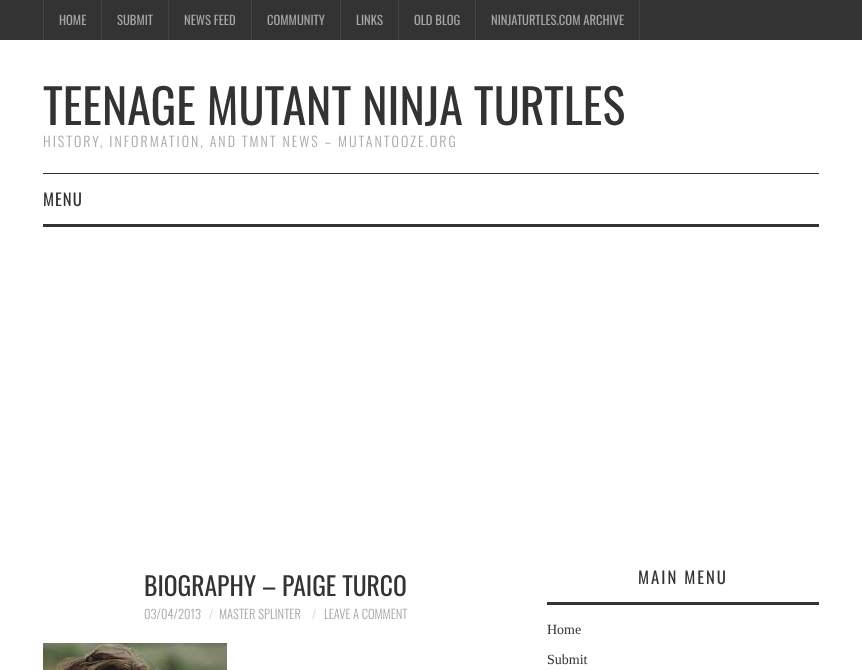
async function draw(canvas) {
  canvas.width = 862;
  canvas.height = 670;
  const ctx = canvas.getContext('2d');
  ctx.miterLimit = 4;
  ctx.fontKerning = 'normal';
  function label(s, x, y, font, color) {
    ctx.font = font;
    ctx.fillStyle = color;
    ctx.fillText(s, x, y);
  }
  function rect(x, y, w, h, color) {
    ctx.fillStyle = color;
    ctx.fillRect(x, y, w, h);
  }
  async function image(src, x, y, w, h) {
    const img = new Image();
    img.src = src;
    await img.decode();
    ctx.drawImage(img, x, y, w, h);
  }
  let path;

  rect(0, 0, 862, 670, '#fff');
  rect(0, 0, 862, 40, '#333');
  path = new Path2D('M43.5 0V40');
  ctx.strokeStyle = '#565656';
  ctx.setLineDash([1, 1]);
  ctx.stroke(path);
  path = new Path2D('M101.5 0V40');
  ctx.stroke(path);
  label('HOME', 59, 25, '12.6px Oswald', '#a6a6a6');
  path = new Path2D('M168.5 0V40');
  ctx.stroke(path);
  label('SUBMIT', 117, 25, '12.6px Oswald', '#a6a6a6');
  path = new Path2D('M251.5 0V40');
  ctx.stroke(path);
  label('NEWS FEED', 184, 25, '12.6px Oswald', '#a6a6a6');
  path = new Path2D('M340.5 0V40');
  ctx.stroke(path);
  label('COMMUNITY', 267, 25, '12.6px Oswald', '#a6a6a6');
  path = new Path2D('M398.5 0V40');
  ctx.stroke(path);
  label('LINKS', 356, 25, '12.6px Oswald', '#a6a6a6');
  path = new Path2D('M475.5 0V40');
  ctx.stroke(path);
  label('OLD BLOG', 414, 25, '12.6px Oswald', '#a6a6a6');
  path = new Path2D('M639.5 0V40');
  ctx.stroke(path);
  label('NINJATURTLES.COM ARCHIVE', 491, 25, '12.6px Oswald', '#a6a6a6');
  label('TEENAGE MUTANT NINJA TURTLES', 43, 125, '48px Oswald', '#333');
  ctx.letterSpacing = '2px';
  label('HISTORY, INFORMATION, AND TMNT NEWS – MUTANTOOZE.ORG', 43, 147, '300 14px Oswald', '#a6a6a6');
  rect(43, 173, 776, 1, '#333');
  rect(43, 224, 776, 3, '#333');
  ctx.letterSpacing = '1px';
  label('MENU', 43, 206, '16.75px Oswald', '#333');
  ctx.letterSpacing = '0px';
  label('BIOGRAPHY – PAIGE TURCO', 144, 596, '25.6px Oswald', '#333');
  label('03/04/2013', 144, 619, '300 12.6px Oswald', '#a6a6a6');
  label('/', 209, 619, '300 12.6px Oswald', '#d6d6d6');
  label('MASTER SPLINTER', 219, 619, '300 12.6px Oswald', '#a6a6a6');
  label('/', 312, 619, '300 12.6px Oswald', '#d6d6d6');
  label('LEAVE A COMMENT', 324, 619, '300 12.6px Oswald', '#a6a6a6');
  await image('assets/img1.png', 43, 643, 184, 27);
  rect(547, 602, 272, 3, '#333');
  ctx.letterSpacing = '2px';
  label('MAIN MENU', 638, 584, '16.75px Oswald', '#333');
  ctx.letterSpacing = '0px';
  label('Home', 547, 634, '14px Liberation Serif', '#333');
  label('Submit', 547, 664, '14px Liberation Serif', '#333');
}

draw(document.querySelector('canvas'));
